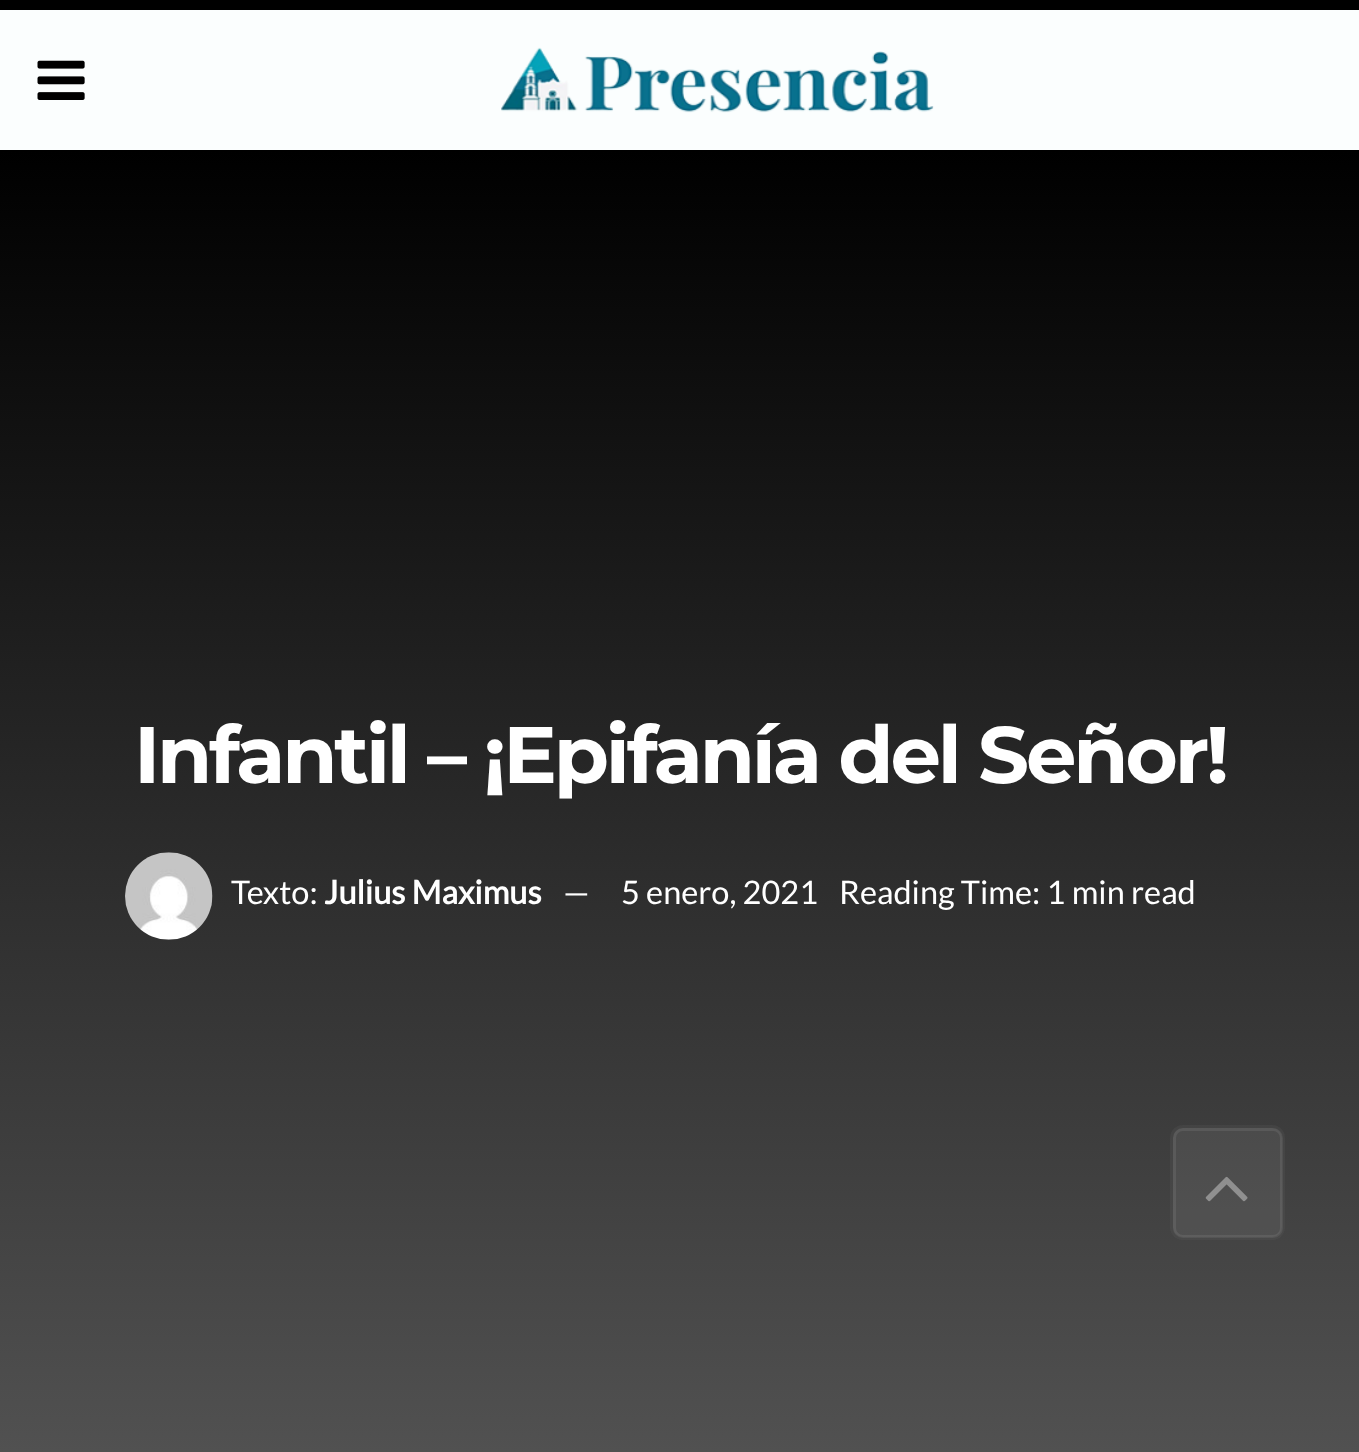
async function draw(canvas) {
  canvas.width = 1359;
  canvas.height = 1452;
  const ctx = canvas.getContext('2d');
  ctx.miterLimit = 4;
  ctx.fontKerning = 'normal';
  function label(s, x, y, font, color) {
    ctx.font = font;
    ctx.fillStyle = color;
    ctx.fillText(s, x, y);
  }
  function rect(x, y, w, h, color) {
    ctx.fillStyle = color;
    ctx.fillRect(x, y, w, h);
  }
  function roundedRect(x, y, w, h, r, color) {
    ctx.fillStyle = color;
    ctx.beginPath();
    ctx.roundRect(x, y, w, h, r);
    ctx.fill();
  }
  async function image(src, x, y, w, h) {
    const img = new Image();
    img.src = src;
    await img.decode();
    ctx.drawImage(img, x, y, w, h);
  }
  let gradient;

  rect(0, 0, 1359, 1452, '#fff');
  rect(0, 10, 1359, 140, '#fbfefe');
  rect(0, 0, 1359, 10, '#000');
  await image('assets/img1.png', 37, 60, 48, 40);
  await image('assets/img2.png', 501, 47, 433, 66);
  gradient = ctx.createLinearGradient(680, 150, 680, 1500);
  gradient.addColorStop(0, '#000');
  gradient.addColorStop(1, '#545454');
  ctx.fillStyle = gradient;
  ctx.fillRect(0, 150, 1359, 1302);
  ctx.letterSpacing = '-3.2px';
  label('Infantil – ¡Epifanía del Señor!', 134, 783, 'bold 80px Montserrat', '#fff');
  await image('assets/img3.png', 125, 852, 88, 88);
  ctx.letterSpacing = '0px';
  label('Texto:', 231, 904, '32.5px Lato', '#fff');
  label('Julius Maximus', 324, 904, 'bold 32.5px Lato', '#fff');
  label('—', 563, 904, '32.5px Lato', '#fff');
  label('5 enero, 2021', 621, 904, '32.5px Lato', '#fff');
  label('Reading Time: 1 min read', 839, 904, '32.5px Lato', '#fff');
  roundedRect(1170, 1125, 115, 115, 13, '#b5b5b51f');
  ctx.beginPath();
  ctx.roundRect(1174.5, 1129.5, 107, 107, 8.5);
  ctx.strokeStyle = '#ffffff14';
  ctx.lineWidth = 3;
  ctx.stroke();
  ctx.beginPath();
  ctx.roundRect(1171.5, 1126.5, 112, 112, 11.5);
  ctx.strokeStyle = '#00000017';
  ctx.stroke();
  await image('assets/img4.png', 1205, 1176, 43, 26);
}

draw(document.querySelector('canvas'));
